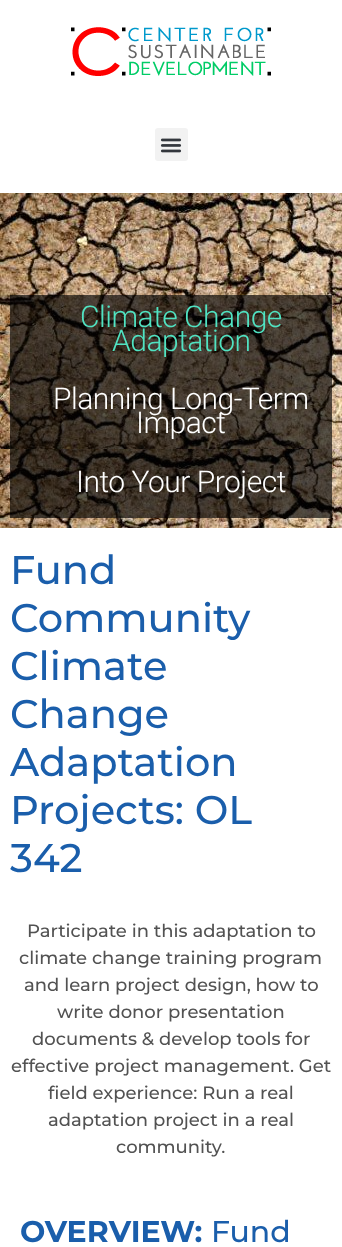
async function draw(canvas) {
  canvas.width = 342;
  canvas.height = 1247;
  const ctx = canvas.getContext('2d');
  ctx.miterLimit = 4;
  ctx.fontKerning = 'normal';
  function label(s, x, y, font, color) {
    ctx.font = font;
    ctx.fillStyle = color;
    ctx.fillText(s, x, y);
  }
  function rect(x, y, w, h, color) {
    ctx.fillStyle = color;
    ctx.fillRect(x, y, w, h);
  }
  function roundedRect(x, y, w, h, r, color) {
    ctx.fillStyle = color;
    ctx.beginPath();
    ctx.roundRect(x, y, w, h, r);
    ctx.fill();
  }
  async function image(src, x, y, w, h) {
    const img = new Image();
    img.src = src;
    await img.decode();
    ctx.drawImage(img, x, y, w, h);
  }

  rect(0, 0, 342, 1247, '#fff');
  await image('assets/img1.png', 71, 27, 200, 49);
  roundedRect(155, 128, 33, 33, 3, '#f2f2f2');
  await image('assets/img2.png', 160, 138, 22, 15);
  await image('assets/img3.png', 0, 193, 342, 335);
  rect(10, 295, 322, 82, '#020202a8');
  ctx.letterSpacing = '-0.5px';
  label('Climate Change', 80, 327, '300 30px Roboto', '#50e3c2');
  label('Adaptation', 112, 351, '300 30px Roboto', '#50e3c2');
  rect(10, 377, 322, 83, '#020202a8');
  label('Planning Long-Term', 53, 409, '300 30px Roboto', '#fff');
  label('Impact', 136, 433, '300 30px Roboto', '#fff');
  rect(10, 460, 322, 58, '#020202a8');
  label('Into Your Project', 76, 492, '300 30px Roboto', '#fff');
  ctx.letterSpacing = '0px';
  label('Fund', 10, 584, '500 40px Montserrat', '#1a5eab');
  label('Community', 10, 632, '500 40px Montserrat', '#1a5eab');
  label('Climate', 10, 680, '500 40px Montserrat', '#1a5eab');
  label('Change', 10, 728, '500 40px Montserrat', '#1a5eab');
  label('Adaptation', 10, 776, '500 40px Montserrat', '#1a5eab');
  label('Projects: OL', 10, 824, '500 40px Montserrat', '#1a5eab');
  label('342', 10, 872, '500 40px Montserrat', '#1a5eab');
  label('Participate in this adaptation to', 27, 937, '500 18px Montserrat', '#525252');
  label('climate change training program', 19, 964, '500 18px Montserrat', '#525252');
  label('and learn project design, how to', 24, 991, '500 18px Montserrat', '#525252');
  label('write donor presentation', 57, 1018, '500 18px Montserrat', '#525252');
  label('documents & develop tools for', 32, 1045, '500 18px Montserrat', '#525252');
  label('effective project management. Get', 11, 1072, '500 18px Montserrat', '#525252');
  label('field experience: Run a real', 48, 1099, '500 18px Montserrat', '#525252');
  label('adaptation project in a real', 48, 1126, '500 18px Montserrat', '#525252');
  label('community.', 116, 1153, '500 18px Montserrat', '#525252');
  label('OVERVIEW:', 20, 1242, 'bold 30px Montserrat', '#1a5eab');
  label('Fund', 211, 1242, '500 30px Montserrat', '#1a5eab');
}

draw(document.querySelector('canvas'));
